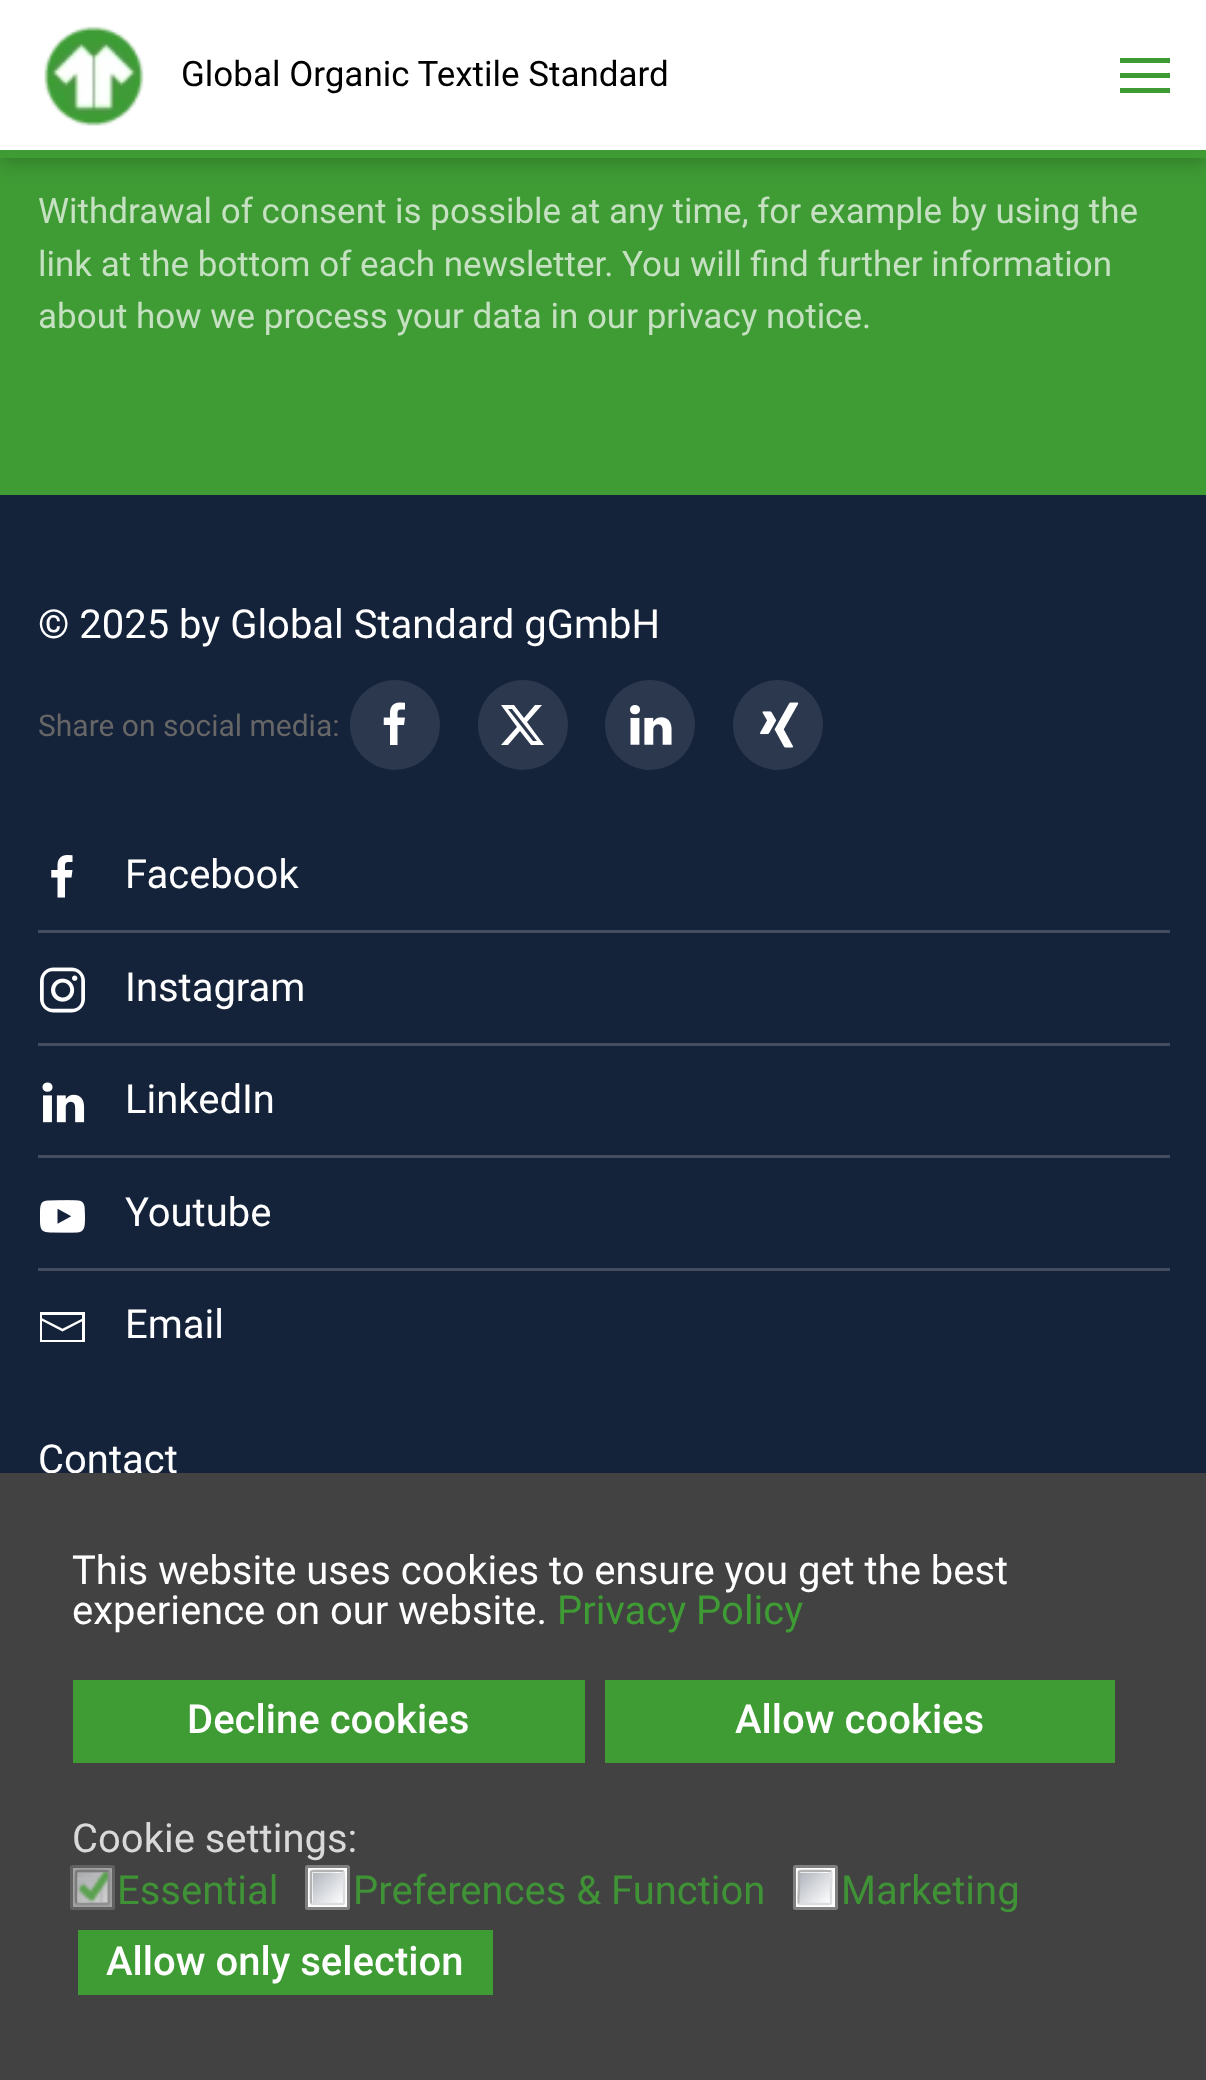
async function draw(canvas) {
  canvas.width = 1206;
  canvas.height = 2080;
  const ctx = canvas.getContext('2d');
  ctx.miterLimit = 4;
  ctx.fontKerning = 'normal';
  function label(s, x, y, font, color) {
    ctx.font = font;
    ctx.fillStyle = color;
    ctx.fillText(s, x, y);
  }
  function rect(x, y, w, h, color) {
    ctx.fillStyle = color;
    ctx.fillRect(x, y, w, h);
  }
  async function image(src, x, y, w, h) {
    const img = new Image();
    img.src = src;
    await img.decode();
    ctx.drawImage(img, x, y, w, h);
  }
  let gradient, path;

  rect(0, 0, 1206, 2080, '#3f9c35');
  ctx.fillStyle = '#00000033';
  ctx.filter = 'blur(10px)';
  ctx.beginPath();
  ctx.rect(0, 5, 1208, 158);
  ctx.fill();
  ctx.filter = 'none';
  rect(0, 0, 1206, 150, '#fff');
  rect(0, 150, 1206, 8, '#3f9c35');
  await image('assets/img1.png', 44, 26, 100, 100);
  label('Global Organic Textile Standard', 181, 86, '35px Roboto', '#000');
  rect(1120, 58, 50, 5, '#3f9c35');
  rect(1120, 73, 50, 5, '#3f9c35');
  rect(1120, 88, 50, 5, '#3f9c35');
  label('Withdrawal of consent is possible at any time, for example by using the', 38, 223, '35px Roboto', '#c5e1c2');
  label('link at the bottom of each newsletter. You will find further information', 38, 276, '35px Roboto', '#c5e1c2');
  label('about how we process your data in our privacy notice.', 38, 328, '35px Roboto', '#c5e1c2');
  rect(0, 495, 1206, 978, '#14223a');
  label('© 2025 by Global Standard gGmbH', 38, 638, '40px Roboto', '#fff');
  label('Share on social media:', 38, 736, '30px Roboto', '#666');
  ctx.fillStyle = '#2c384e';
  ctx.beginPath();
  ctx.arc(395, 725, 45, 0, 2 * Math.PI);
  ctx.fill();
  await image('assets/img2.png', 383, 702, 22, 43);
  ctx.beginPath();
  ctx.arc(523, 725, 45, 0, 2 * Math.PI);
  ctx.fill();
  ctx.fillStyle = '#fff';
  path = new Path2D('M535 705H542L527 722L544 745H531L520 731L508 745H501L517 727L501 705H514L524 718ZM533 741H537L512 709H508Z');
  ctx.fill(path);
  ctx.fillStyle = '#2c384e';
  ctx.beginPath();
  ctx.arc(650, 725, 45, 0, 2 * Math.PI);
  ctx.fill();
  await image('assets/img3.png', 630, 705, 42, 40);
  ctx.beginPath();
  ctx.arc(778, 725, 45, 0, 2 * Math.PI);
  ctx.fill();
  await image('assets/img4.png', 760, 702, 39, 46);
  await image('assets/img5.png', 51, 855, 22, 43);
  label('Facebook', 125, 888, '40px Roboto', '#fff');
  rect(38, 930, 1132, 3, '#434e61');
  await image('assets/img6.png', 40, 967, 45, 46);
  label('Instagram', 125, 1001, '40px Roboto', '#fff');
  rect(38, 1043, 1132, 3, '#434e61');
  await image('assets/img7.png', 42, 1082, 43, 41);
  label('LinkedIn', 125, 1113, '40px Roboto', '#fff');
  rect(38, 1155, 1132, 3, '#434e61');
  await image('assets/img8.png', 40, 1200, 45, 33);
  label('Youtube', 125, 1226, '40px Roboto', '#fff');
  rect(38, 1268, 1132, 3, '#434e61');
  path = new Path2D('M41 1319L62.5 1330L84 1319');
  ctx.strokeStyle = '#fff';
  ctx.lineWidth = 2.5;
  ctx.stroke(path);
  ctx.fillStyle = '#fff';
  path = new Path2D('M40 1312V1342H85V1312ZM82 1340H42V1315H82Z');
  ctx.fill(path);
  label('Email', 125, 1338, '40px Roboto', '#fff');
  label('Contact', 38, 1473, '40px Roboto', '#fff');
  rect(0, 1473, 1206, 607, '#424242');
  label('This website uses cookies to ensure you get the best', 72, 1584, '40px Roboto', '#fff');
  label('experience on our website.', 72, 1624, '40px Roboto', '#fff');
  label('Privacy Policy', 557, 1624, '40px Roboto', '#3f9c35');
  rect(73, 1680, 512, 83, '#3f9c35');
  label('Decline cookies', 187, 1733, '500 40px Roboto', '#fff');
  rect(605, 1680, 510, 83, '#3f9c35');
  label('Allow cookies', 735, 1733, '500 40px Roboto', '#fff');
  label('Cookie settings:', 72, 1852, '40px Roboto', '#d9d9d9');
  ctx.fillStyle = '#a1a1a1';
  ctx.beginPath();
  ctx.roundRect(71.5, 1866.5, 42, 42, 1);
  ctx.fill();
  ctx.strokeStyle = '#616161';
  ctx.lineWidth = 3;
  ctx.stroke();
  await image('assets/img9.png', 75, 1870, 36, 35);
  path = new Path2D('M108.5 1871.5C109.5 1872.5 109 1885.5 109 1887.5V1897.5C109 1905 110 1904 102.5 1904H92.5C90.5 1904 77.5 1904.5 76.5 1903.5');
  ctx.strokeStyle = '#8f9090';
  ctx.lineWidth = 2.5;
  ctx.stroke(path);
  path = new Path2D('M76.5 1903.5C75.5 1902.5 76 1889.5 76 1887.5V1877.5C76 1870 75 1871 82.5 1871H92.5C94.5 1871 107.5 1870.5 108.5 1871.5');
  ctx.strokeStyle = '#7b7b7b';
  ctx.stroke(path);
  label('Essential', 117, 1904, '40px Roboto', '#3f9336');
  ctx.fillStyle = '#fff';
  ctx.beginPath();
  ctx.roundRect(306.5, 1866.5, 42, 42, 1);
  ctx.fill();
  ctx.strokeStyle = '#808080';
  ctx.lineWidth = 3;
  ctx.stroke();
  gradient = ctx.createLinearGradient(313, 1873, 343, 1903);
  gradient.addColorStop(0, '#b1b6be');
  gradient.addColorStop(1, '#fff');
  ctx.fillStyle = gradient;
  ctx.fillRect(313, 1873, 30, 30);
  path = new Path2D('M343.5 1871.5C344.5 1872.5 344 1885.5 344 1887.5V1897.5C344 1905 345 1904 337.5 1904H327.5C325.5 1904 312.5 1904.5 311.5 1903.5');
  ctx.strokeStyle = '#dcddde';
  ctx.lineWidth = 2.5;
  ctx.stroke(path);
  path = new Path2D('M311.5 1903.5C310.5 1902.5 311 1889.5 311 1887.5V1877.5C311 1870 310 1871 317.5 1871H327.5C329.5 1871 342.5 1870.5 343.5 1871.5');
  ctx.strokeStyle = '#b3b3b3';
  ctx.stroke(path);
  label('Preferences & Function', 353, 1904, '40px Roboto', '#3f9336');
  ctx.fillStyle = '#fff';
  ctx.beginPath();
  ctx.roundRect(794.5, 1866.5, 42, 42, 1);
  ctx.fill();
  ctx.strokeStyle = '#808080';
  ctx.lineWidth = 3;
  ctx.stroke();
  gradient = ctx.createLinearGradient(800, 1873, 830, 1903);
  gradient.addColorStop(0, '#b1b6be');
  gradient.addColorStop(1, '#fff');
  ctx.fillStyle = gradient;
  ctx.fillRect(800, 1873, 30, 30);
  path = new Path2D('M831 1871.5C832 1872.5 831 1885.5 831 1887.5V1897.5C831 1905 832.5 1904 825 1904H815C813 1904 800 1904.5 799 1903.5');
  ctx.strokeStyle = '#dcddde';
  ctx.lineWidth = 2.5;
  ctx.stroke(path);
  path = new Path2D('M799 1903.5C798 1902.5 799 1889.5 799 1887.5V1877.5C799 1870 797.5 1871 805 1871H815C817 1871 830 1870.5 831 1871.5');
  ctx.strokeStyle = '#b3b3b3';
  ctx.stroke(path);
  label('Marketing', 841, 1904, '40px Roboto', '#3f9336');
  rect(78, 1930, 415, 65, '#3f9c35');
  label('Allow only selection', 106, 1975, '500 40px Roboto', '#fff');
}

draw(document.querySelector('canvas'));
